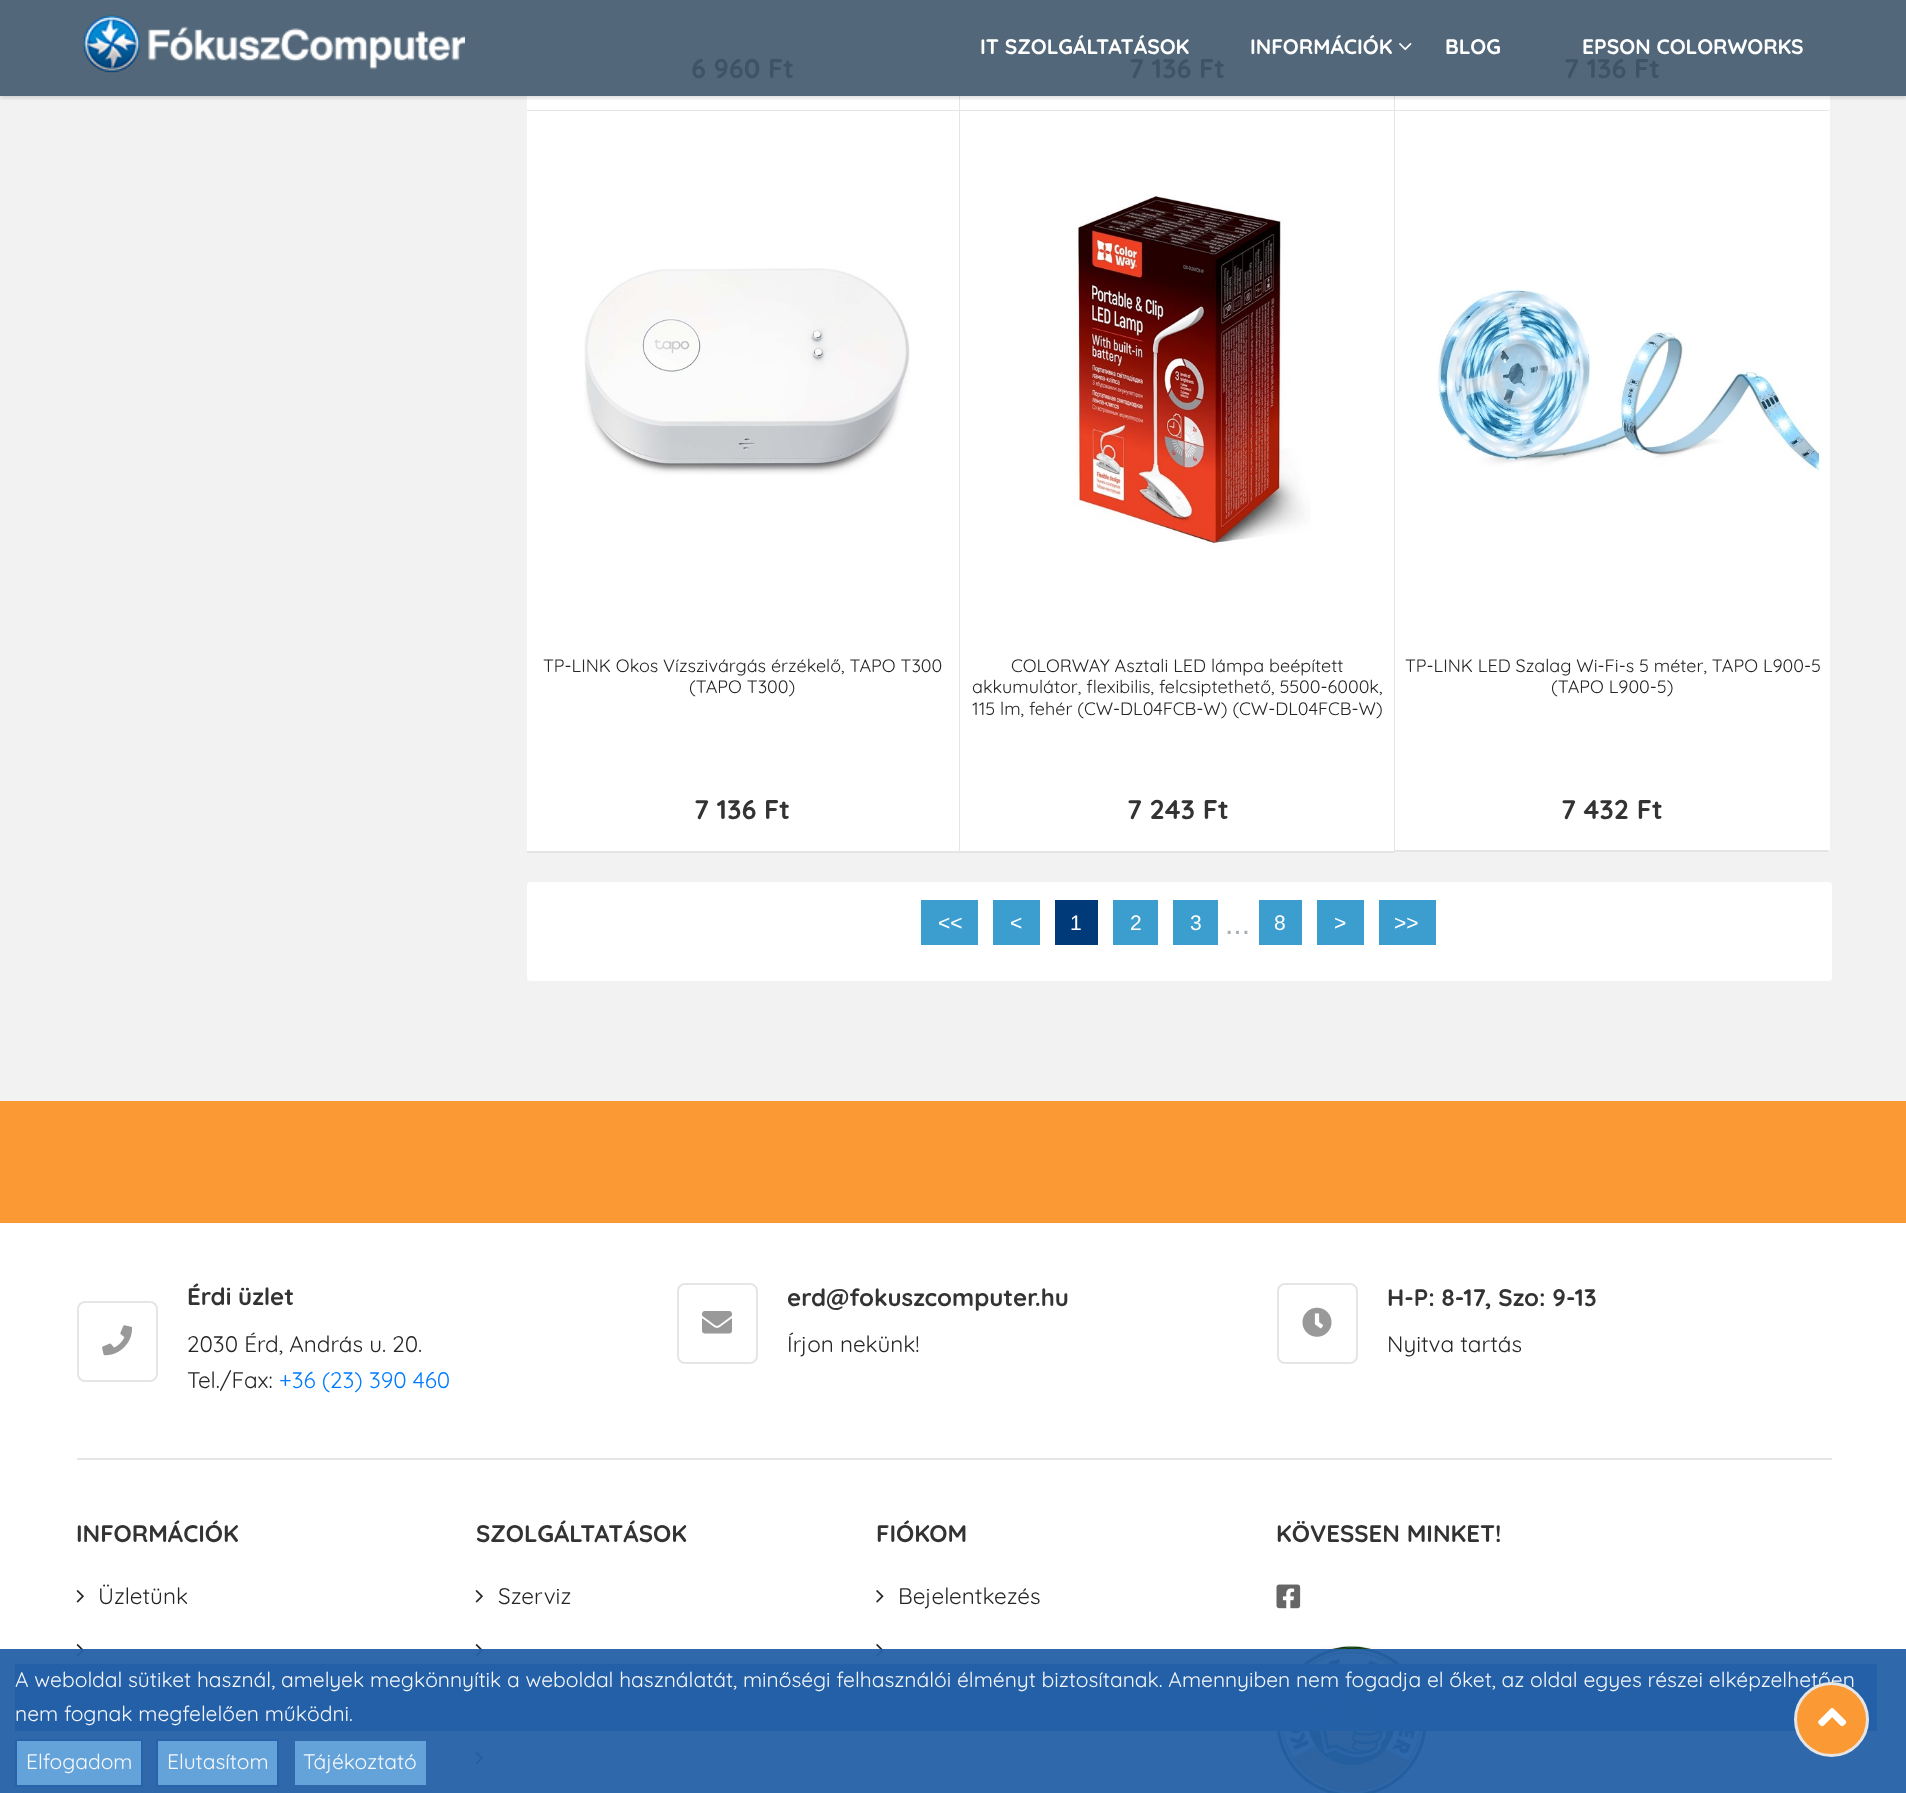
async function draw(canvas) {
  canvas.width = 1906;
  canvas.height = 1793;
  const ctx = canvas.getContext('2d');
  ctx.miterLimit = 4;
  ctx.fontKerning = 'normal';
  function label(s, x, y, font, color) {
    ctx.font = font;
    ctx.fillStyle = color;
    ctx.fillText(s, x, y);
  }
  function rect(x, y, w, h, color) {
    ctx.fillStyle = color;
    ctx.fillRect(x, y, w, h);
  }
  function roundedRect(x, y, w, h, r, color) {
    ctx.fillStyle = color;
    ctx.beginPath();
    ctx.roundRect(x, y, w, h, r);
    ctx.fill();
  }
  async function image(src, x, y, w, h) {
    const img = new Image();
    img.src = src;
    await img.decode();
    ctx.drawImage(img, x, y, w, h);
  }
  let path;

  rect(0, 0, 1906, 1793, '#f2f2f2');
  rect(0, 0, 1906, 96, '#526779');
  rect(527, 96, 432, 14, '#fff');
  rect(959, 96, 1, 756, '#e5e5e5');
  rect(960, 96, 434, 14, '#fff');
  rect(1394, 96, 1, 756, '#e5e5e5');
  rect(1395, 96, 435, 756, '#fff');
  ctx.save();
  ctx.beginPath();
  ctx.rect(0, 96, 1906, 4);
  ctx.clip();
  ctx.fillStyle = '#00000024';
  ctx.filter = 'blur(2px)';
  ctx.beginPath();
  ctx.rect(0, 2, 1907, 96);
  ctx.fill();
  ctx.filter = 'none';
  ctx.restore();
  await image('assets/img1.png', 82, 14, 383, 60);
  label('IT SZOLGÁLTATÁSOK', 980, 54, 'bold 21px Quicksand', '#fff');
  label('INFORMÁCIÓK', 1250, 54, 'bold 21px Quicksand', '#fff');
  await image('assets/img2.png', 1399, 43, 13, 8);
  label('BLOG', 1445, 54, 'bold 21px Quicksand', '#fff');
  label('EPSON COLORWORKS', 1582, 54, 'bold 21px Quicksand', '#fff');
  rect(527, 110, 433, 1, '#e5e5e5');
  label('6 960 Ft', 691, 78, 'bold 27px Quicksand', '#3f5366');
  rect(960, 110, 435, 1, '#e5e5e5');
  label('7 136 Ft', 1129, 78, 'bold 27px Quicksand', '#3f5366');
  ctx.fillStyle = '#e5e5e5';
  path = new Path2D('M1830 111H1395V110H1828Z');
  ctx.fill(path);
  label('7 136 Ft', 1564, 78, 'bold 27px Quicksand', '#3f5366');
  rect(527, 111, 432, 740, '#fff');
  rect(527, 851, 868, 2, '#e5e5e5');
  await image('assets/img3.png', 584, 268, 326, 207);
  label('TP-LINK Okos Vízszivárgás érzékelő, TAPO T300', 543, 672, '18px Quicksand', '#252525');
  label('(TAPO T300)', 689, 693, '18px Quicksand', '#252525');
  label('7 136 Ft', 694, 819, 'bold 27px Quicksand', '#333');
  rect(960, 111, 434, 740, '#fff');
  await image('assets/img4.png', 1074, 195, 237, 356);
  label('COLORWAY Asztali LED lámpa beépített', 1011, 672, '18px Quicksand', '#252525');
  label('akkumulátor, flexibilis, felcsiptethető, 5500-6000k,', 972, 693, '18px Quicksand', '#252525');
  label('115 lm, fehér (CW-DL04FCB-W) (CW-DL04FCB-W)', 972, 715, '18px Quicksand', '#252525');
  label('7 243 Ft', 1127, 819, 'bold 27px Quicksand', '#333');
  ctx.fillStyle = '#e5e5e5';
  path = new Path2D('M1830 852H1395V850H1828Z');
  ctx.fill(path);
  await image('assets/img5.png', 1437, 289, 385, 183);
  label('TP-LINK LED Szalag Wi-Fi-s 5 méter, TAPO L900-5', 1405, 672, '18px Quicksand', '#252525');
  label('(TAPO L900-5)', 1551, 693, '18px Quicksand', '#252525');
  label('7 432 Ft', 1561, 819, 'bold 27px Quicksand', '#333');
  roundedRect(527, 882, 1305, 99, 4, '#fff');
  rect(921, 900, 57, 45, '#3c9dcf');
  label('<<', 938, 930, '21px Liberation Sans', '#fff');
  rect(993, 900, 47, 45, '#3c9dcf');
  label('<', 1010, 930, '21px Liberation Sans', '#fff');
  rect(1055, 900, 43, 45, '#003a79');
  label('1', 1070, 930, '21px Liberation Sans', '#fff');
  rect(1113, 900, 45, 45, '#3c9dcf');
  label('2', 1130, 930, '21px Liberation Sans', '#fff');
  rect(1173, 900, 45, 45, '#3c9dcf');
  label('3', 1190, 930, '21px Liberation Sans', '#fff');
  rect(1259, 900, 43, 45, '#3c9dcf');
  label('8', 1274, 930, '21px Liberation Sans', '#fff');
  rect(1317, 900, 47, 45, '#3c9dcf');
  label('>', 1334, 930, '21px Liberation Sans', '#fff');
  rect(1379, 900, 57, 45, '#3c9dcf');
  label('>>', 1394, 930, '21px Liberation Sans', '#fff');
  label('...', 1225, 934, '30px Liberation Sans', '#a8aeb3');
  rect(0, 1223, 1906, 570, '#fff');
  rect(0, 1101, 1906, 122, '#fb9935');
  ctx.beginPath();
  ctx.roundRect(78, 1302, 79, 79, 7);
  ctx.strokeStyle = '#e5e5e5';
  ctx.lineWidth = 2;
  ctx.stroke();
  await image('assets/img6.png', 102, 1325, 30, 31);
  label('Érdi üzlet', 187, 1305, 'bold 24px Quicksand', '#333');
  label('2030 Érd, András u. 20.', 187, 1352, '22.5px Quicksand', '#252525');
  label('Tel./Fax:', 187, 1388, '22.5px Quicksand', '#252525');
  label('+36 (23) 390 460', 279, 1388, '22.5px Quicksand', '#007bff');
  ctx.beginPath();
  ctx.roundRect(678, 1284, 79, 79, 7);
  ctx.stroke();
  await image('assets/img7.png', 702, 1311, 30, 23);
  label('erd@fokuszcomputer.hu', 787, 1306, 'bold 24px Quicksand', '#333');
  label('Írjon nekünk!', 787, 1352, '22.5px Quicksand', '#252525');
  ctx.beginPath();
  ctx.roundRect(1278, 1284, 79, 79, 7);
  ctx.stroke();
  await image('assets/img8.png', 1302, 1307, 30, 30);
  label('H-P: 8-17, Szo: 9-13', 1387, 1306, 'bold 24px Quicksand', '#333');
  label('Nyitva tartás', 1387, 1352, '22.5px Quicksand', '#252525');
  rect(77, 1458, 1755, 2, '#e5e5e5');
  label('INFORMÁCIÓK', 76, 1542, 'bold 24px Quicksand', '#333');
  await image('assets/img9.png', 76, 1590, 8, 13);
  label('Üzletünk', 98, 1604, '22.5px Quicksand', '#252525');
  await image('assets/img9.png', 76, 1644, 8, 13);
  await image('assets/img9.png', 76, 1698, 8, 13);
  await image('assets/img9.png', 76, 1752, 8, 13);
  label('SZOLGÁLTATÁSOK', 476, 1542, 'bold 24px Quicksand', '#333');
  await image('assets/img9.png', 475, 1590, 8, 13);
  label('Szerviz', 498, 1604, '22.5px Quicksand', '#252525');
  await image('assets/img9.png', 475, 1644, 8, 13);
  await image('assets/img9.png', 475, 1698, 8, 13);
  await image('assets/img9.png', 475, 1752, 8, 13);
  label('FIÓKOM', 876, 1542, 'bold 24px Quicksand', '#333');
  await image('assets/img10.png', 876, 1590, 8, 13);
  label('Bejelentkezés', 898, 1604, '22.5px Quicksand', '#252525');
  await image('assets/img10.png', 876, 1644, 8, 13);
  label('KÖVESSEN MINKET!', 1276, 1542, 'bold 24px Quicksand', '#333');
  await image('assets/img11.png', 1276, 1584, 25, 25);
  await image('assets/img12.png', 1276, 1646, 151, 147);
  rect(0, 1649, 1906, 144, '#2460a7f2');
  rect(15, 1664, 1862, 67, '#2460a7f2');
  label('A weboldal sütiket használ, amelyek megkönnyítik a weboldal használatát, minőségi felhasználói élményt biztosítanak. Amennyiben nem fogadja el őket, az oldal egyes részei elképzelhetően', 15, 1687, '21px Quicksand', '#f4f7fb');
  label('nem fognak megfelelően működni.', 15, 1721, '21px Quicksand', '#f4f7fb');
  ctx.fillStyle = '#67a6dcf2';
  ctx.beginPath();
  ctx.rect(16, 1740, 126, 46);
  ctx.fill();
  ctx.strokeStyle = '#2763aa';
  ctx.stroke();
  label('Elfogadom', 26, 1769, '21px Quicksand', '#f4f7fb');
  ctx.fillStyle = '#67a6dcf2';
  ctx.beginPath();
  ctx.rect(157, 1740, 121, 46);
  ctx.fill();
  ctx.stroke();
  label('Elutasítom', 167, 1769, '21px Quicksand', '#f4f7fb');
  rect(295, 1741, 131, 44, '#67a6dcf2');
  label('Tájékoztató', 303, 1769, '21px Quicksand', '#f4f7fb');
  ctx.fillStyle = '#fb9935';
  ctx.beginPath();
  ctx.arc(1831.5, 1719.5, 36, 0, 2 * Math.PI);
  ctx.fill();
  ctx.strokeStyle = '#e5e5e5';
  ctx.lineWidth = 3;
  ctx.stroke();
  await image('assets/img13.png', 1818, 1708, 29, 19);
}

draw(document.querySelector('canvas'));
